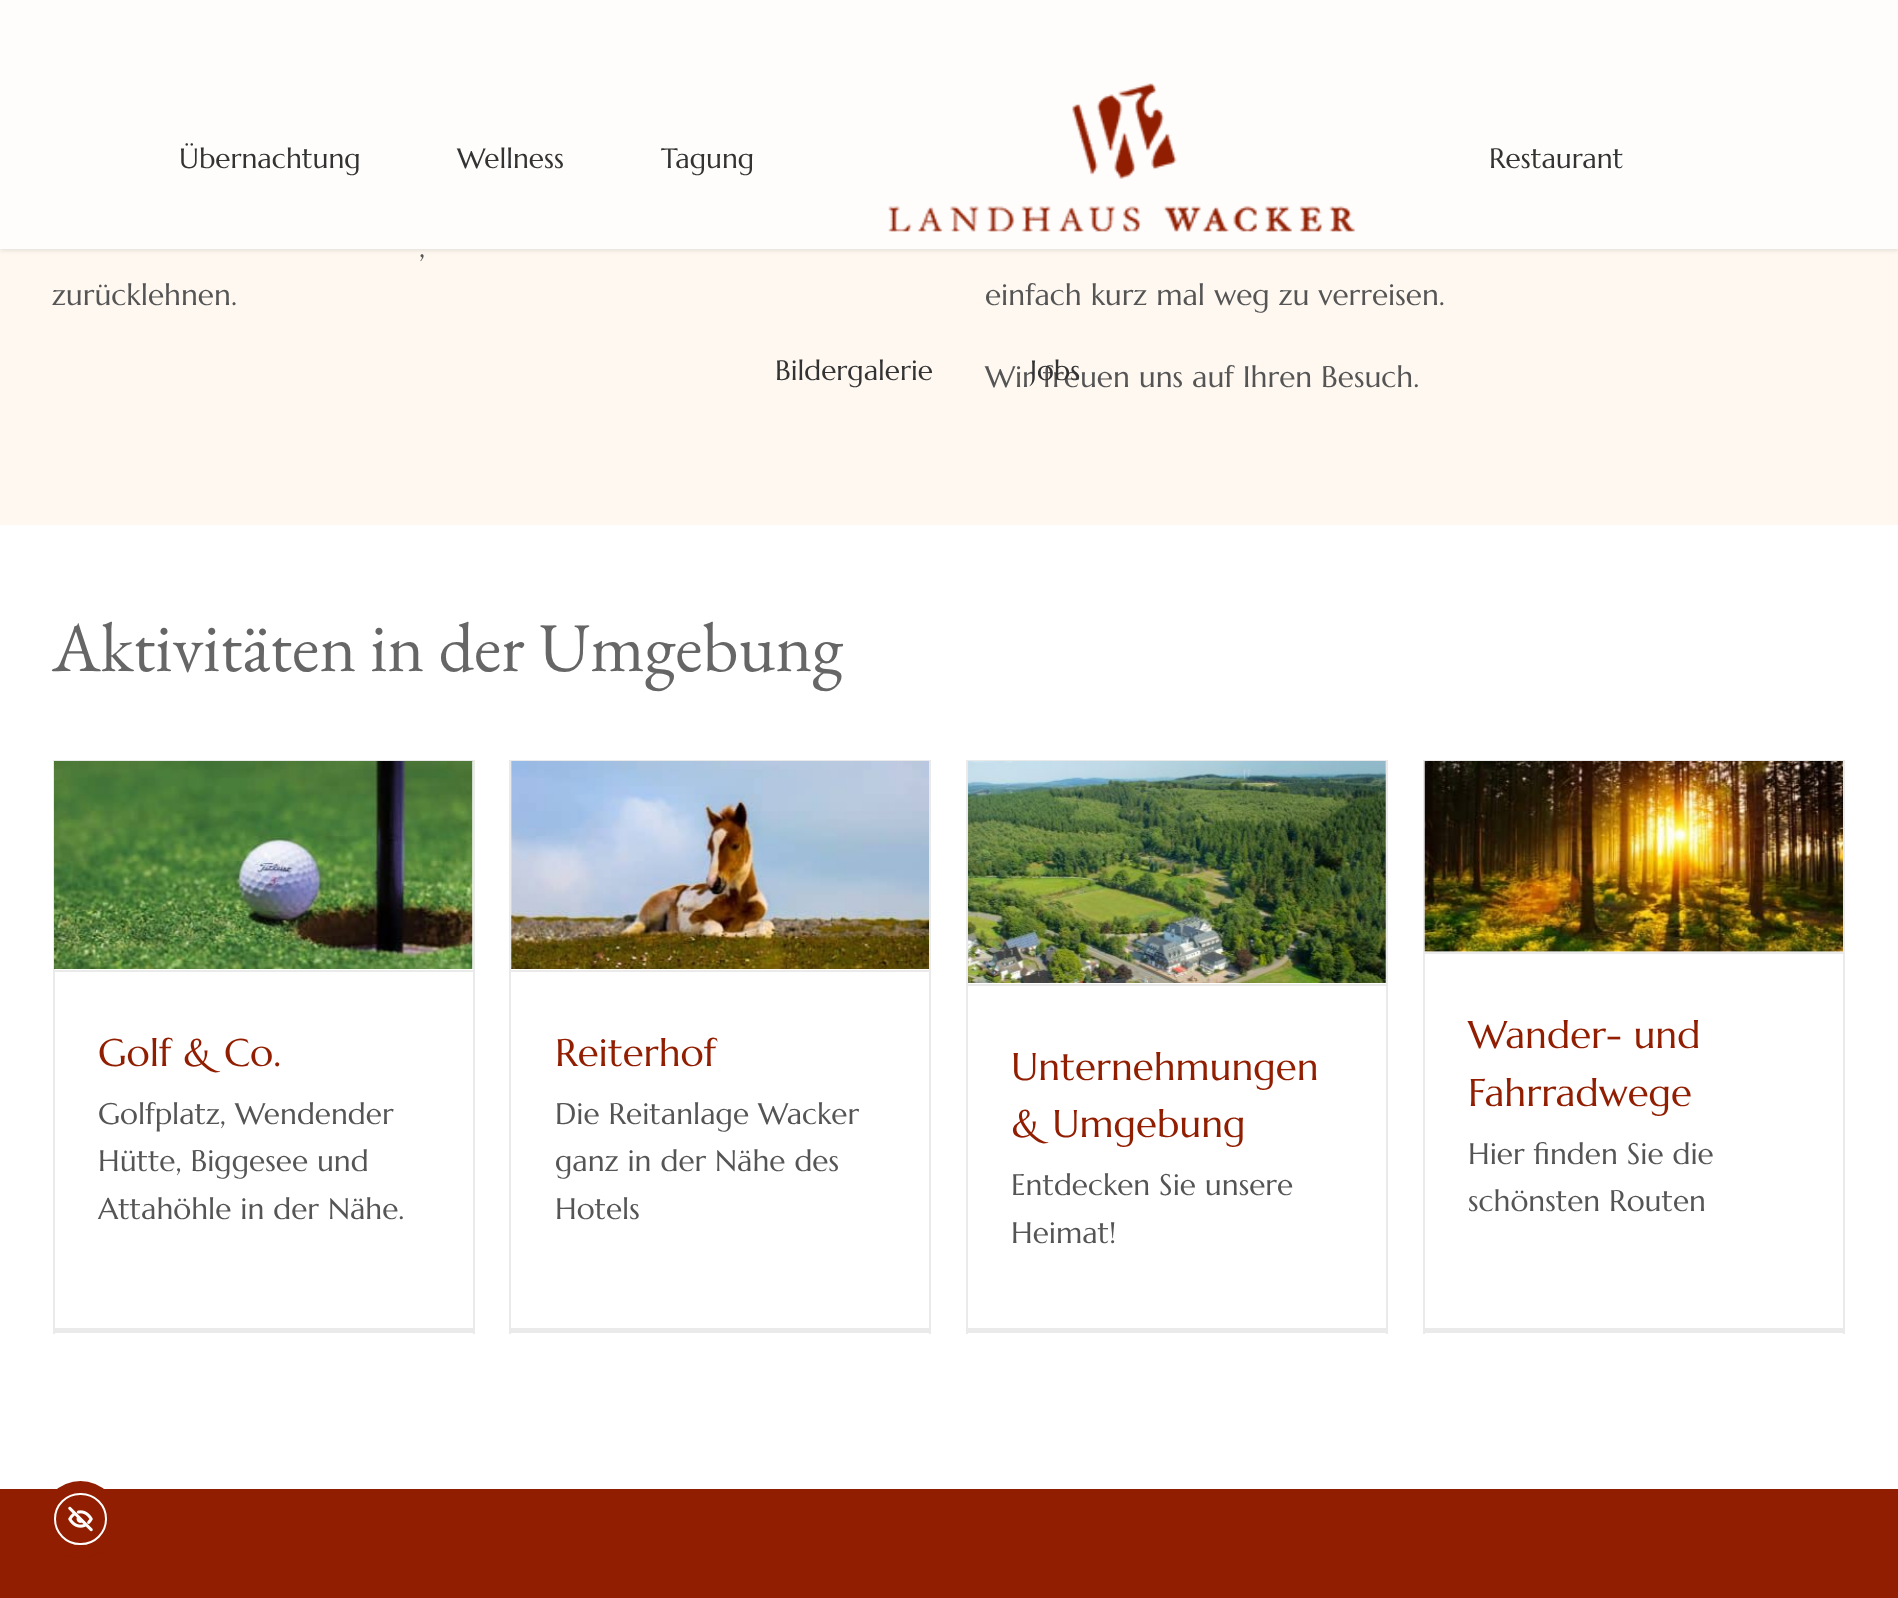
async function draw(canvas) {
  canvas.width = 1898;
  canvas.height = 1598;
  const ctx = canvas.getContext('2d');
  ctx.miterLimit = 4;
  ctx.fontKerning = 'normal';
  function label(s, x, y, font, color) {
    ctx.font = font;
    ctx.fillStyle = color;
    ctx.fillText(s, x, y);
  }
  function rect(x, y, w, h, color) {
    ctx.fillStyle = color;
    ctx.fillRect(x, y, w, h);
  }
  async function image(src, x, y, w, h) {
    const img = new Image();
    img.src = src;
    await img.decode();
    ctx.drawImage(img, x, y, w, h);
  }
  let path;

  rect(0, 0, 1898, 1598, '#fff');
  rect(0, 0, 1898, 525, '#fef8f1');
  ctx.save();
  path = new Path2D('M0 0H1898V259H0ZM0 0H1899V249H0Z');
  ctx.clip(path, 'evenodd');
  ctx.fillStyle = '#0000001f';
  ctx.filter = 'blur(2.5px)';
  ctx.beginPath();
  ctx.rect(0, 2, 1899, 248);
  ctx.fill();
  ctx.filter = 'none';
  ctx.restore();
  rect(0, 0, 1898, 249, '#ffffffbf');
  label('Übernachtung', 179, 168, '28px Marcellus', '#333');
  label('Wellness', 457, 168, '28px Marcellus', '#333');
  label('Tagung', 661, 168, '28px Marcellus', '#333');
  await image('assets/img1.png', 888, 83, 467, 149);
  label('Restaurant', 1489, 168, '28px Marcellus', '#333');
  label('Bildergalerie', 775, 380, '28px Marcellus', '#333');
  label('Wir freuen uns auf Ihren Besuch.', 985, 387, '29.75px Marcellus', '#555');
  label('Jobs', 1030, 380, '28px Marcellus', '#333');
  label(',', 419, 257, '29.75px Marcellus', '#555');
  label('zurücklehnen.', 52, 305, '29.75px Marcellus', '#555');
  label('einfach kurz mal weg zu verreisen.', 985, 305, '29.75px Marcellus', '#555');
  label('Aktivitäten in der Umgebung', 52, 671, '70px EB Garamond', '#666');
  rect(53, 760, 421, 2, '#ebeaea');
  rect(473, 760, 2, 574, '#ebeaea');
  rect(53, 1328, 421, 5, '#ebeaea');
  rect(53, 760, 2, 574, '#ebeaea');
  rect(54, 970, 419, 2, '#ebeaea');
  await image('assets/img2.png', 54, 761, 419, 208);
  label('Golf & Co.', 98, 1066, '38.5px Marcellus', '#911e00');
  label('Golfplatz, Wendender', 98, 1124, '29.75px Marcellus', '#555');
  label('Hütte, Biggesee und', 98, 1171, '29.75px Marcellus', '#555');
  label('Attahöhle in der Nähe.', 98, 1219, '29.75px Marcellus', '#555');
  rect(509, 760, 422, 2, '#ebeaea');
  rect(929, 760, 2, 574, '#ebeaea');
  rect(509, 1328, 422, 5, '#ebeaea');
  rect(509, 760, 2, 574, '#ebeaea');
  rect(511, 970, 418, 2, '#ebeaea');
  await image('assets/img3.png', 511, 761, 418, 208);
  label('Reiterhof', 555, 1066, '38.5px Marcellus', '#911e00');
  label('Die Reitanlage Wacker', 555, 1124, '29.75px Marcellus', '#555');
  label('ganz in der Nähe des', 555, 1171, '29.75px Marcellus', '#555');
  label('Hotels', 555, 1219, '29.75px Marcellus', '#555');
  rect(966, 760, 422, 2, '#ebeaea');
  rect(1386, 760, 2, 574, '#ebeaea');
  rect(966, 1328, 422, 5, '#ebeaea');
  rect(966, 760, 2, 574, '#ebeaea');
  rect(968, 984, 418, 2, '#ebeaea');
  await image('assets/img4.png', 968, 761, 418, 222);
  label('Unternehmungen', 1011, 1080, '38.5px Marcellus', '#911e00');
  label('& Umgebung', 1011, 1137, '38.5px Marcellus', '#911e00');
  label('Entdecken Sie unsere', 1011, 1195, '29.75px Marcellus', '#555');
  label('Heimat!', 1011, 1243, '29.75px Marcellus', '#555');
  rect(1423, 760, 422, 1, '#ebeaea');
  rect(1843, 760, 2, 574, '#ebeaea');
  rect(1423, 1328, 422, 5, '#ebeaea');
  rect(1423, 760, 2, 574, '#ebeaea');
  rect(1425, 952, 418, 2, '#ebeaea');
  await image('assets/img5.png', 1424, 761, 419, 191);
  label('Wander- und', 1468, 1048, '38.5px Marcellus', '#911e00');
  label('Fahrradwege', 1468, 1106, '38.5px Marcellus', '#911e00');
  label('Hier finden Sie die', 1468, 1164, '29.75px Marcellus', '#555');
  label('schönsten Routen', 1468, 1211, '29.75px Marcellus', '#555');
  rect(0, 1489, 1898, 109, '#911e00');
  ctx.beginPath();
  ctx.arc(80.5, 1519.5, 38.5, 0, 2 * Math.PI);
  ctx.fill();
  ctx.beginPath();
  ctx.roundRect(55, 1494, 51, 50, 25);
  ctx.strokeStyle = '#fff';
  ctx.lineWidth = 2;
  ctx.stroke();
  await image('assets/img6.png', 68, 1506, 25, 26);
}

draw(document.querySelector('canvas'));
